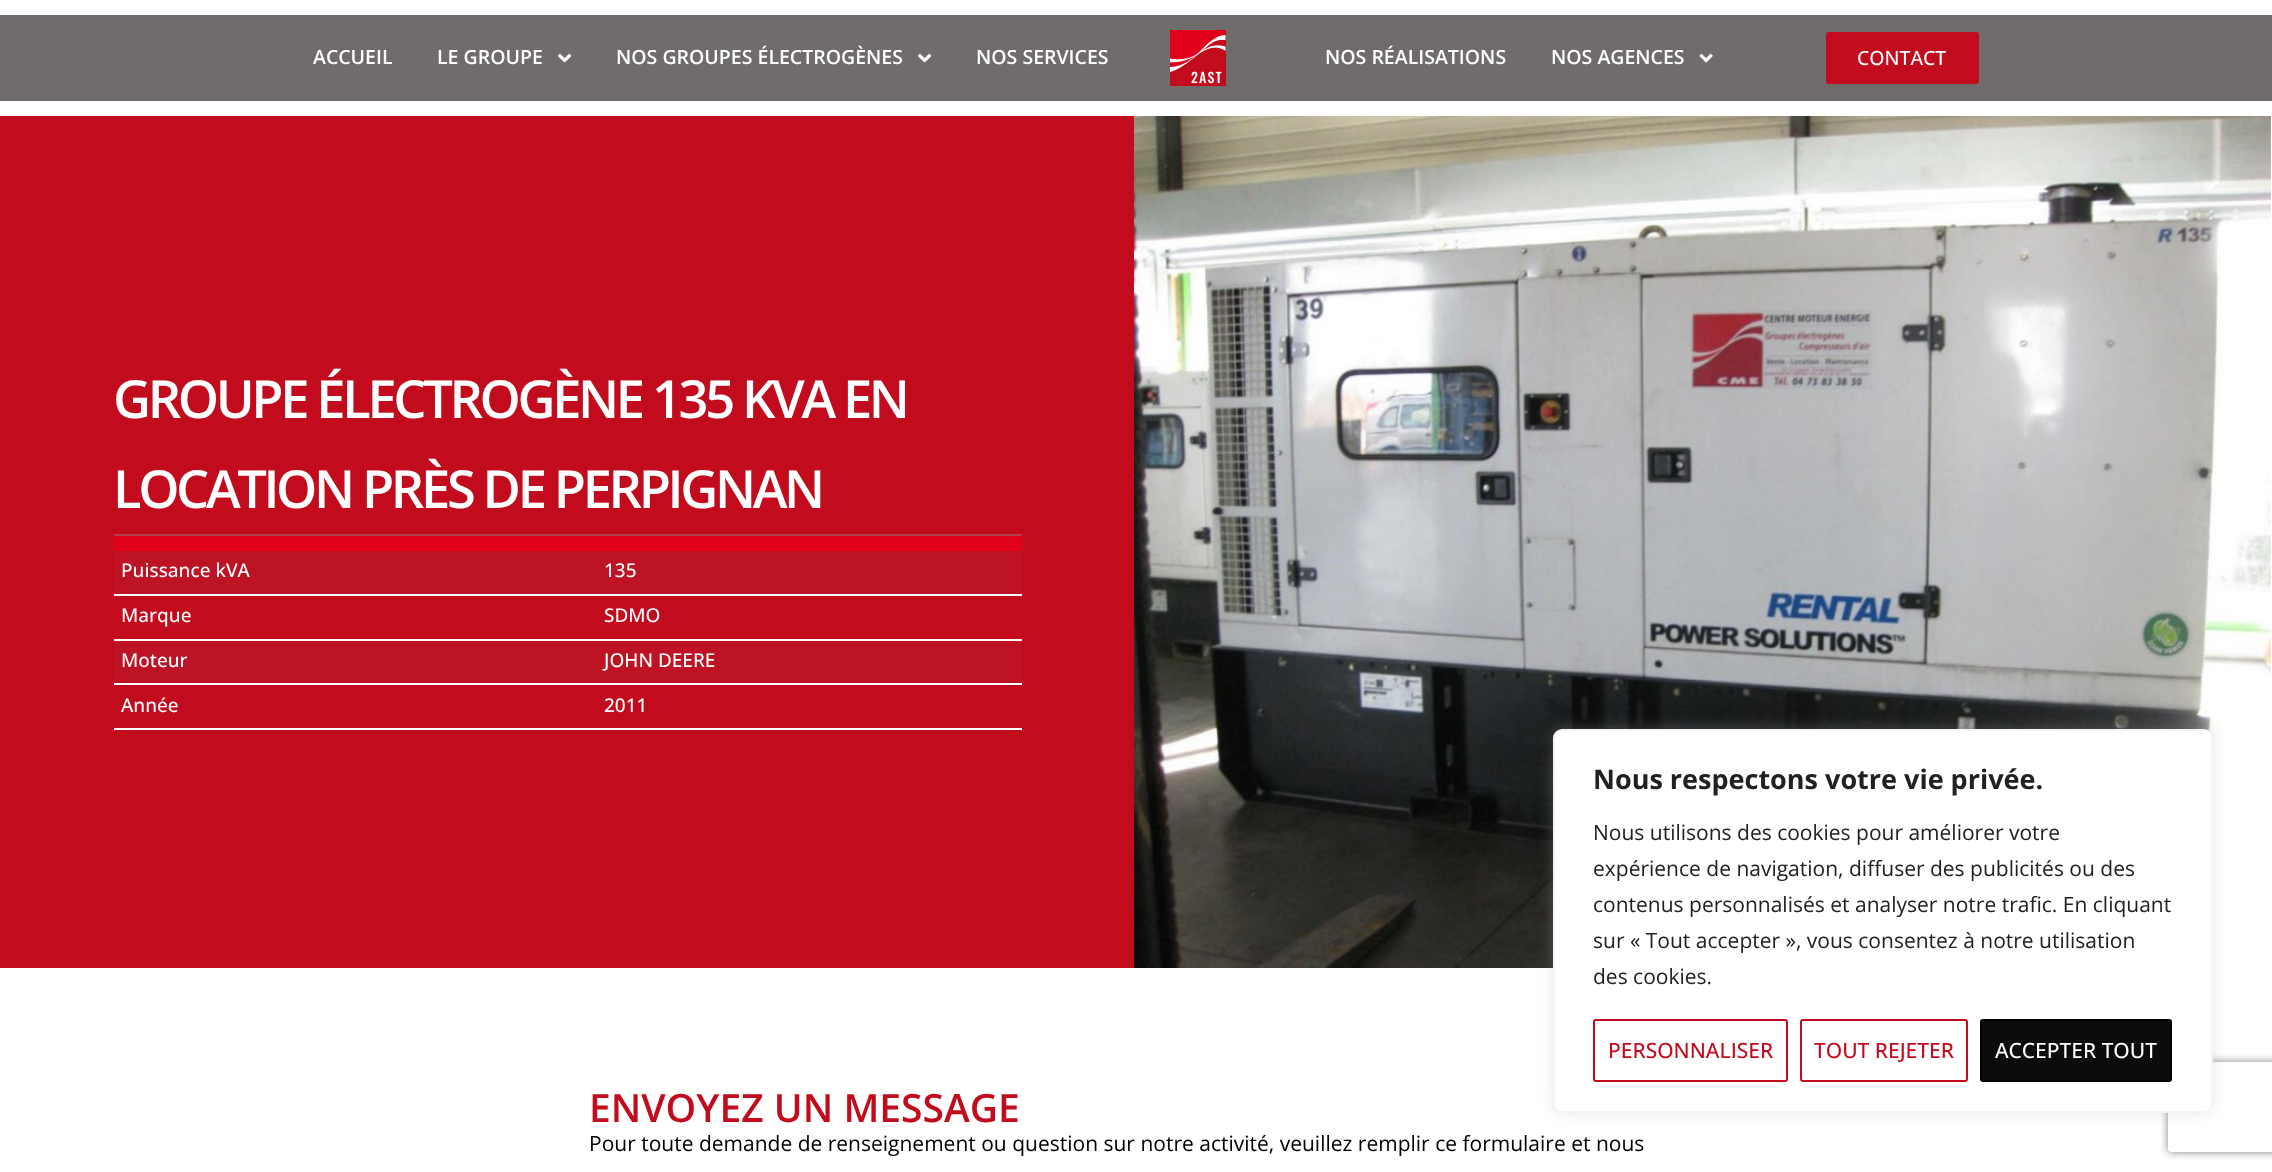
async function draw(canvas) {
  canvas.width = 2272;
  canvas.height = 1172;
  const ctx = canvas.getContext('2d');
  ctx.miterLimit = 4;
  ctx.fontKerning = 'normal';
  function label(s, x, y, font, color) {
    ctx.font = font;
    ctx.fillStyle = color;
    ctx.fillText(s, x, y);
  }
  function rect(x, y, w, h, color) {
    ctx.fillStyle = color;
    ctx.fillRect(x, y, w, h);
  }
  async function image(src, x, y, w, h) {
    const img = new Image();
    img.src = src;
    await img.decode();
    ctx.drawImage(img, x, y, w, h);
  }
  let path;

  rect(0, 0, 2272, 1172, '#fff');
  rect(0, 15, 2272, 86, '#716c6c');
  label('ACCUEIL', 313, 64, '600 19.5px Open Sans', '#fff');
  label('LE GROUPE', 437, 64, '600 19.5px Open Sans', '#fff');
  await image('assets/img1.png', 558, 53, 14, 10);
  label('NOS GROUPES ÉLECTROGÈNES', 616, 64, '600 19.5px Open Sans', '#fff');
  await image('assets/img1.png', 918, 53, 14, 10);
  label('NOS SERVICES', 976, 64, '600 19.5px Open Sans', '#fff');
  await image('assets/img2.png', 1170, 30, 56, 56);
  label('NOS RÉALISATIONS', 1325, 64, '600 19.5px Open Sans', '#fff');
  label('NOS AGENCES', 1551, 64, '600 19.5px Open Sans', '#fff');
  await image('assets/img3.png', 1699, 53, 14, 10);
  ctx.fillStyle = '#c20b1d';
  ctx.beginPath();
  ctx.roundRect(1827, 33, 151, 50, 2);
  ctx.fill();
  ctx.strokeStyle = '#c20b1d';
  ctx.lineWidth = 2;
  ctx.stroke();
  label('CONTACT', 1857, 65, '500 19.5px Open Sans', '#fff');
  rect(0, 116, 1134, 852, '#c20b1d');
  ctx.letterSpacing = '-3.4px';
  label('GROUPE ÉLECTROGÈNE 135 KVA EN', 113, 418, '600 52.5px Open Sans', '#fff');
  label('LOCATION PRÈS DE PERPIGNAN', 113, 508, '600 52.5px Open Sans', '#fff');
  rect(114, 536, 908, 15, '#e1001a');
  rect(114, 534, 908, 2, '#b1404d');
  rect(114, 551, 908, 43, '#bd1324');
  rect(114, 594, 908, 2, '#fff');
  ctx.letterSpacing = '0px';
  label('Puissance kVA', 121, 577, '500 19px Open Sans', '#fff');
  label('135', 604, 577, '500 19px Open Sans', '#fff');
  rect(114, 639, 908, 2, '#fff');
  label('Marque', 121, 622, '500 19px Open Sans', '#fff');
  label('SDMO', 604, 622, '500 19px Open Sans', '#fff');
  rect(114, 641, 908, 42, '#bd1324');
  rect(114, 683, 908, 2, '#fff');
  label('Moteur', 121, 667, '500 19px Open Sans', '#fff');
  label('JOHN DEERE', 604, 667, '500 19px Open Sans', '#fff');
  rect(114, 728, 908, 2, '#fff');
  label('Année', 121, 712, '500 19px Open Sans', '#fff');
  label('2011', 604, 712, '500 19px Open Sans', '#fff');
  await image('assets/img4.png', 1134, 116, 1137, 852);
  label('ENVOYEZ UN MESSAGE', 589, 1122, '600 39px Open Sans', '#c20b1d');
  label('Pour toute demande de renseignement ou question sur notre activité, veuillez remplir ce formulaire et nous', 589, 1151, '21px Open Sans', '#000');
  ctx.fillStyle = '#acabab4d';
  ctx.filter = 'blur(7.5px)';
  ctx.beginPath();
  ctx.roundRect(1553, 728, 660, 384, 9);
  ctx.fill();
  ctx.filter = 'none';
  ctx.save();
  path = new Path2D('M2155 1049H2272V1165H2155ZM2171 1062H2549C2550.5 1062 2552 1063.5 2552 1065V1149C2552 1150.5 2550.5 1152 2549 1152H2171C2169.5 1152 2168 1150.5 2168 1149V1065C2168 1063.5 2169.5 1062 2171 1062Z');
  ctx.clip(path, 'evenodd');
  ctx.fillStyle = '#808080';
  ctx.filter = 'blur(4px)';
  ctx.beginPath();
  ctx.roundRect(2168, 1062, 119, 90, 3);
  ctx.fill();
  ctx.filter = 'none';
  ctx.restore();
  ctx.fillStyle = '#fff';
  ctx.beginPath();
  ctx.roundRect(1554, 730, 658, 382, 8);
  ctx.fill();
  ctx.strokeStyle = '#f4f4f4';
  ctx.stroke();
  label('Nous respectons votre vie privée.', 1593, 789, 'bold 27px Open Sans', '#212121');
  label('Nous utilisons des cookies pour améliorer votre', 1593, 840, '21px Open Sans', '#212121');
  label('expérience de navigation, diffuser des publicités ou des', 1593, 876, '21px Open Sans', '#212121');
  label('contenus personnalisés et analyser notre trafic. En cliquant', 1593, 912, '21px Open Sans', '#212121');
  label('sur « Tout accepter », vous consentez à notre utilisation', 1593, 948, '21px Open Sans', '#212121');
  label('des cookies.', 1593, 984, '21px Open Sans', '#212121');
  ctx.beginPath();
  ctx.roundRect(1594, 1020, 193, 61, 2);
  ctx.strokeStyle = '#c20b1c';
  ctx.stroke();
  label('PERSONNALISER', 1608, 1058, '500 21px Open Sans', '#c20b1d');
  ctx.beginPath();
  ctx.roundRect(1801, 1020, 166, 61, 2);
  ctx.stroke();
  label('TOUT REJETER', 1814, 1058, '500 21px Open Sans', '#c20b1d');
  ctx.fillStyle = '#0c0c0c';
  ctx.beginPath();
  ctx.roundRect(1981, 1020, 190, 61, 2);
  ctx.fill();
  ctx.strokeStyle = '#000';
  ctx.stroke();
  label('ACCEPTER TOUT', 1995, 1058, '500 21px Open Sans', '#fff');
}

draw(document.querySelector('canvas'));
